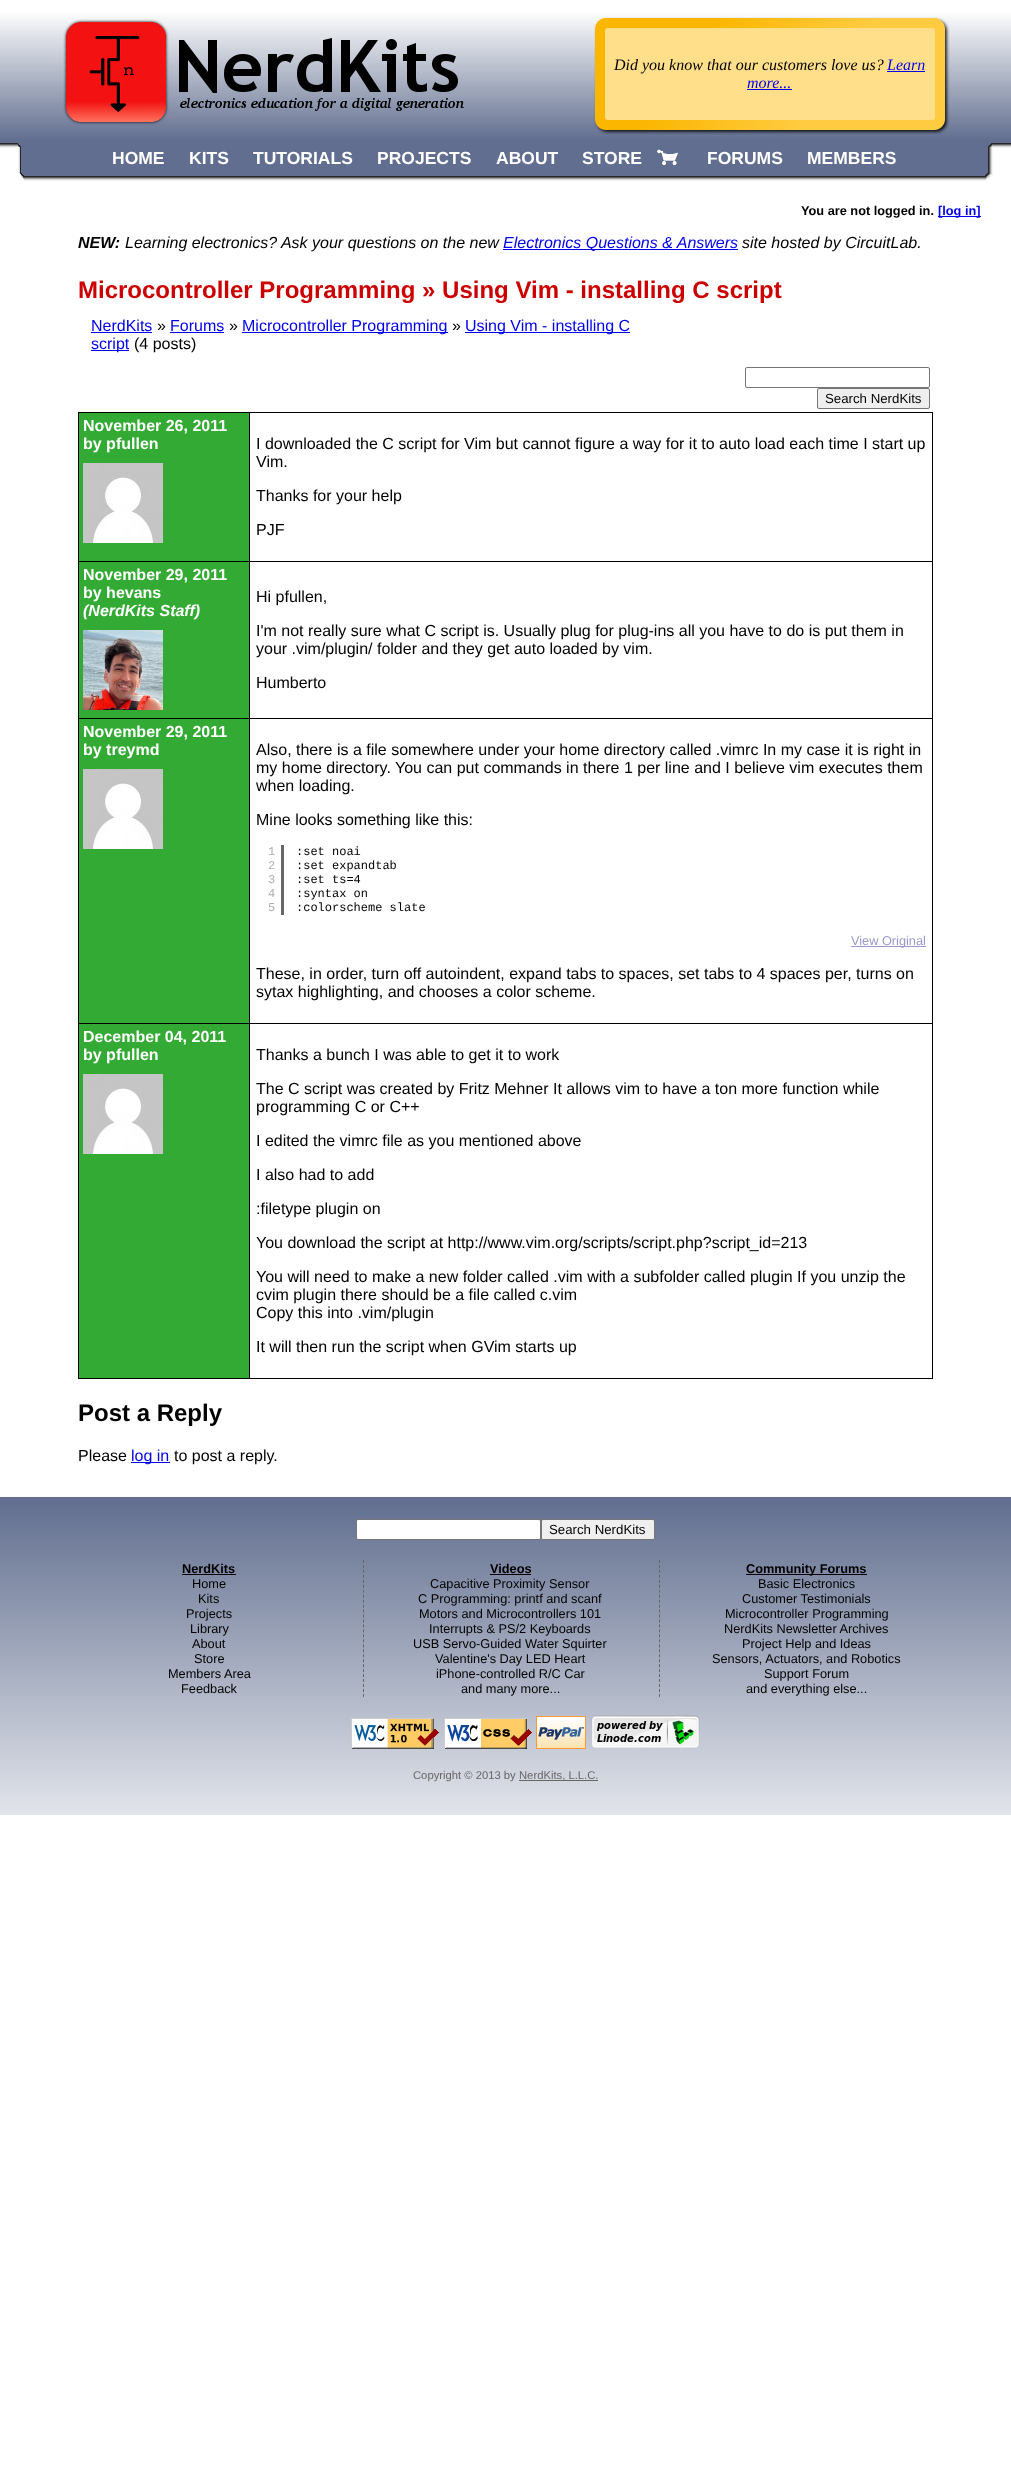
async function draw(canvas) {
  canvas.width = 1011;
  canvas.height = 2472;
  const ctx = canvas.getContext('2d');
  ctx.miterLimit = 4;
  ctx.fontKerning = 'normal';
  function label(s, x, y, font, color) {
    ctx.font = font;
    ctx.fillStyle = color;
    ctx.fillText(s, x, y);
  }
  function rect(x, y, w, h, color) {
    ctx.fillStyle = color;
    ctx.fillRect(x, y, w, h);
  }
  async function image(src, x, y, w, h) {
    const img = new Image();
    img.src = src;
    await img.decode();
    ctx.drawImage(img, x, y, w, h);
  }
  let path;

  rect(0, 0, 1011, 2472, '#fff');
  await image('assets/img1.png', 0, 0, 1011, 150);
  await image('assets/img2.png', 63, 19, 401, 106);
  await image('assets/img3.png', 594, 17, 356, 118);
  label('Did you know that our customers love us?', 614, 70, 'italic 16px Liberation Serif', '#000');
  label('Learn', 887, 70, 'italic 16px Liberation Serif', '#00e');
  rect(887, 71, 38, 1, '#00e');
  label('more...', 747, 88, 'italic 16px Liberation Serif', '#00e');
  rect(747, 89, 45, 1, '#00e');
  rect(18, 143, 8, 1, '#616e8f');
  await image('assets/img4.png', 18, 144, 8, 39);
  rect(26, 143, 957, 33, '#616e8f');
  await image('assets/img5.png', 26, 176, 74, 7);
  await image('assets/img6.png', 983, 143, 10, 40);
  await image('assets/img7.png', 100, 176, 77, 7);
  label('HOME', 112, 164, 'bold 17.5px Liberation Sans', '#fff');
  await image('assets/img8.png', 177, 176, 64, 7);
  label('KITS', 189, 164, 'bold 17.5px Liberation Sans', '#fff');
  await image('assets/img9.png', 241, 176, 124, 7);
  label('TUTORIALS', 253, 164, 'bold 17.5px Liberation Sans', '#fff');
  await image('assets/img10.png', 365, 176, 119, 7);
  label('PROJECTS', 377, 164, 'bold 17.5px Liberation Sans', '#fff');
  await image('assets/img11.png', 484, 176, 86, 7);
  label('ABOUT', 496, 164, 'bold 17.5px Liberation Sans', '#fff');
  await image('assets/img12.png', 570, 176, 125, 7);
  label('STORE', 582, 164, 'bold 17.5px Liberation Sans', '#fff');
  await image('assets/img13.png', 657, 149, 21, 17);
  await image('assets/img14.png', 695, 176, 100, 7);
  label('FORUMS', 707, 164, 'bold 17.5px Liberation Sans', '#fff');
  await image('assets/img15.png', 795, 176, 114, 7);
  label('MEMBERS', 807, 164, 'bold 17.5px Liberation Sans', '#fff');
  await image('assets/img5.png', 909, 176, 74, 7);
  label('You are not logged in.', 801, 215, 'bold 12.75px Liberation Sans', '#000');
  rect(938, 216, 43, 1, '#00e');
  label('[log in]', 938, 215, 'bold 12.75px Liberation Sans', '#00e');
  label('NEW:', 78, 248, 'italic bold 16px Liberation Sans', '#000');
  label('Learning electronics? Ask your questions on the new', 125, 248, 'italic 16px Liberation Sans', '#000');
  rect(503, 249, 235, 1, '#00e');
  label('Electronics Questions & Answers', 503, 248, 'italic 16px Liberation Sans', '#00e');
  label('site hosted by CircuitLab.', 742, 248, 'italic 16px Liberation Sans', '#000');
  label('Microcontroller Programming » Using Vim - installing C script', 78, 298, 'bold 24px Liberation Sans', '#c00');
  label('NerdKits', 91, 331, '16px Liberation Sans', '#00e');
  rect(91, 332, 61, 1, '#00e');
  label('»', 157, 331, '16px Liberation Sans', '#000');
  label('Forums', 170, 331, '16px Liberation Sans', '#00e');
  rect(170, 332, 54, 1, '#00e');
  label('»', 229, 331, '16px Liberation Sans', '#000');
  rect(242, 332, 206, 1, '#00e');
  label('Microcontroller Programming', 242, 331, '16px Liberation Sans', '#00e');
  label('»', 452, 331, '16px Liberation Sans', '#000');
  rect(465, 332, 165, 1, '#00e');
  label('Using Vim - installing C', 465, 331, '16px Liberation Sans', '#00e');
  rect(91, 350, 38, 1, '#00e');
  label('script', 91, 349, '16px Liberation Sans', '#00e');
  label('(4 posts)', 134, 349, '16px Liberation Sans', '#000');
  ctx.beginPath();
  ctx.roundRect(745.5, 367.5, 184, 20, 1.5);
  ctx.strokeStyle = '#767676';
  ctx.stroke();
  ctx.fillStyle = '#efefef';
  ctx.beginPath();
  ctx.roundRect(817.5, 388.5, 112, 20, 1.5);
  ctx.fill();
  ctx.stroke();
  label('Search NerdKits', 825, 403, '13.25px Liberation Sans', '#000');
  rect(79, 413, 170, 148, '#3a3');
  rect(249, 412, 684, 1, '#000');
  rect(249, 561, 684, 1, '#000');
  rect(249, 718, 684, 1, '#000');
  rect(249, 1023, 684, 1, '#000');
  rect(932, 1023, 1, 356, '#000');
  rect(249, 1378, 684, 1, '#000');
  rect(249, 1023, 1, 356, '#000');
  rect(78, 1023, 172, 1, '#000');
  rect(249, 718, 1, 306, '#000');
  rect(78, 718, 172, 1, '#000');
  rect(249, 561, 1, 158, '#000');
  rect(78, 561, 172, 1, '#000');
  rect(249, 412, 1, 150, '#000');
  rect(78, 412, 172, 1, '#000');
  rect(78, 1378, 172, 1, '#000');
  rect(78, 1023, 1, 356, '#000');
  rect(78, 718, 1, 306, '#000');
  rect(78, 561, 1, 158, '#000');
  rect(78, 412, 1, 150, '#000');
  label('November 26, 2011', 83, 431, 'bold 16px Liberation Sans', '#fff');
  label('by pfullen', 83, 449, 'bold 16px Liberation Sans', '#fff');
  await image('assets/img16.png', 83, 463, 80, 80);
  rect(932, 718, 1, 306, '#000');
  rect(932, 561, 1, 158, '#000');
  rect(932, 412, 1, 150, '#000');
  label('I downloaded the C script for Vim but cannot figure a way for it to auto load each time I start up', 256, 449, '16px Liberation Sans', '#000');
  label('Vim.', 256, 467, '16px Liberation Sans', '#000');
  label('Thanks for your help', 256, 501, '16px Liberation Sans', '#000');
  label('PJF', 256, 535, '16px Liberation Sans', '#000');
  rect(79, 562, 170, 156, '#3a3');
  label('November 29, 2011', 83, 580, 'bold 16px Liberation Sans', '#fff');
  label('by hevans', 83, 598, 'bold 16px Liberation Sans', '#fff');
  label('(NerdKits Staff)', 83, 616, 'italic bold 16px Liberation Sans', '#fff');
  await image('assets/img17.png', 83, 630, 80, 80);
  label('Hi pfullen,', 256, 602, '16px Liberation Sans', '#000');
  label('I\'m not really sure what C script is. Usually plug for plug-ins all you have to do is put them in', 256, 636, '16px Liberation Sans', '#000');
  label('your .vim/plugin/ folder and they get auto loaded by vim.', 256, 654, '16px Liberation Sans', '#000');
  label('Humberto', 256, 688, '16px Liberation Sans', '#000');
  rect(79, 719, 170, 304, '#3a3');
  label('November 29, 2011', 83, 737, 'bold 16px Liberation Sans', '#fff');
  label('by treymd', 83, 755, 'bold 16px Liberation Sans', '#fff');
  await image('assets/img16.png', 83, 769, 80, 80);
  label('Also, there is a file somewhere under your home directory called .vimrc In my case it is right in', 256, 755, '16px Liberation Sans', '#000');
  label('my home directory. You can put commands in there 1 per line and I believe vim executes them', 256, 773, '16px Liberation Sans', '#000');
  label('when loading.', 256, 791, '16px Liberation Sans', '#000');
  label('Mine looks something like this:', 256, 825, '16px Liberation Sans', '#000');
  rect(281, 845, 3, 70, '#666');
  label('1', 268, 855, '12px Liberation Mono', '#afafaf');
  label('2', 268, 869, '12px Liberation Mono', '#afafaf');
  label('3', 268, 883, '12px Liberation Mono', '#afafaf');
  label('4', 268, 897, '12px Liberation Mono', '#afafaf');
  label('5', 268, 911, '12px Liberation Mono', '#afafaf');
  label(':set noai', 296, 855, '12px Liberation Mono', '#000');
  label(':set expandtab', 296, 869, '12px Liberation Mono', '#000');
  label(':set ts=4', 296, 883, '12px Liberation Mono', '#000');
  label(':syntax on', 296, 897, '12px Liberation Mono', '#000');
  label(':colorscheme slate', 296, 911, '12px Liberation Mono', '#000');
  rect(851, 946, 75, 1, '#99c');
  label('View Original', 851, 945, '12.75px Liberation Sans', '#99c');
  label('These, in order, turn off autoindent, expand tabs to spaces, set tabs to 4 spaces per, turns on', 256, 979, '16px Liberation Sans', '#000');
  label('sytax highlighting, and chooses a color scheme.', 256, 997, '16px Liberation Sans', '#000');
  rect(79, 1024, 170, 354, '#3a3');
  label('December 04, 2011', 83, 1042, 'bold 16px Liberation Sans', '#fff');
  label('by pfullen', 83, 1060, 'bold 16px Liberation Sans', '#fff');
  await image('assets/img16.png', 83, 1074, 80, 80);
  label('Thanks a bunch I was able to get it to work', 256, 1060, '16px Liberation Sans', '#000');
  label('The C script was created by Fritz Mehner It allows vim to have a ton more function while', 256, 1094, '16px Liberation Sans', '#000');
  label('programming C or C++', 256, 1112, '16px Liberation Sans', '#000');
  label('I edited the vimrc file as you mentioned above', 256, 1146, '16px Liberation Sans', '#000');
  label('I also had to add', 256, 1180, '16px Liberation Sans', '#000');
  label(':filetype plugin on', 256, 1214, '16px Liberation Sans', '#000');
  label('You download the script at http://www.vim.org/scripts/script.php?script_id=213', 256, 1248, '16px Liberation Sans', '#000');
  label('You will need to make a new folder called .vim with a subfolder called plugin If you unzip the', 256, 1282, '16px Liberation Sans', '#000');
  label('cvim plugin there should be a file called c.vim', 256, 1300, '16px Liberation Sans', '#000');
  label('Copy this into .vim/plugin', 256, 1318, '16px Liberation Sans', '#000');
  label('It will then run the script when GVim starts up', 256, 1352, '16px Liberation Sans', '#000');
  label('Post a Reply', 78, 1421, 'bold 24px Liberation Sans', '#000');
  label('Please', 78, 1461, '16px Liberation Sans', '#000');
  rect(131, 1462, 39, 1, '#00e');
  label('log in', 131, 1461, '16px Liberation Sans', '#00e');
  label('to post a reply.', 174, 1461, '16px Liberation Sans', '#000');
  await image('assets/img18.png', 0, 1497, 1011, 318);
  ctx.fillStyle = '#fff';
  ctx.beginPath();
  ctx.roundRect(356.5, 1519.5, 184, 20, 1.5);
  ctx.fill();
  ctx.stroke();
  ctx.fillStyle = '#efefef';
  ctx.beginPath();
  ctx.roundRect(541.5, 1519.5, 113, 20, 1.5);
  ctx.fill();
  ctx.stroke();
  label('Search NerdKits', 549, 1534, '13.25px Liberation Sans', '#000');
  label('NerdKits', 182, 1573, 'bold 12.75px Liberation Sans', '#000');
  rect(182, 1574, 54, 1, '#000');
  label('Home', 192, 1588, '12.75px Liberation Sans', '#000');
  label('Kits', 198, 1603, '12.75px Liberation Sans', '#000');
  label('Projects', 186, 1618, '12.75px Liberation Sans', '#000');
  label('Library', 190, 1633, '12.75px Liberation Sans', '#000');
  label('About', 192, 1648, '12.75px Liberation Sans', '#000');
  label('Store', 194, 1663, '12.75px Liberation Sans', '#000');
  label('Members Area', 168, 1678, '12.75px Liberation Sans', '#000');
  label('Feedback', 181, 1693, '12.75px Liberation Sans', '#000');
  path = new Path2D('M363.5 1560V1697');
  ctx.strokeStyle = '#666';
  ctx.setLineDash([3, 1.96]);
  ctx.stroke(path);
  label('Videos', 490, 1573, 'bold 12.75px Liberation Sans', '#000');
  rect(490, 1574, 41, 1, '#000');
  label('Capacitive Proximity Sensor', 430, 1588, '12.75px Liberation Sans', '#000');
  label('C Programming: printf and scanf', 418, 1603, '12.75px Liberation Sans', '#000');
  label('Motors and Microcontrollers 101', 419, 1618, '12.75px Liberation Sans', '#000');
  label('Interrupts & PS/2 Keyboards', 429, 1633, '12.75px Liberation Sans', '#000');
  label('USB Servo-Guided Water Squirter', 413, 1648, '12.75px Liberation Sans', '#000');
  label('Valentine\'s Day LED Heart', 435, 1663, '12.75px Liberation Sans', '#000');
  label('iPhone-controlled R/C Car', 436, 1678, '12.75px Liberation Sans', '#000');
  label('and many more...', 461, 1693, '12.75px Liberation Sans', '#000');
  path = new Path2D('M659.5 1560V1697');
  ctx.stroke(path);
  rect(746, 1574, 121, 1, '#000');
  label('Community Forums', 746, 1573, 'bold 12.75px Liberation Sans', '#000');
  label('Basic Electronics', 758, 1588, '12.75px Liberation Sans', '#000');
  label('Customer Testimonials', 742, 1603, '12.75px Liberation Sans', '#000');
  label('Microcontroller Programming', 725, 1618, '12.75px Liberation Sans', '#000');
  label('NerdKits Newsletter Archives', 724, 1633, '12.75px Liberation Sans', '#000');
  label('Project Help and Ideas', 742, 1648, '12.75px Liberation Sans', '#000');
  label('Sensors, Actuators, and Robotics', 712, 1663, '12.75px Liberation Sans', '#000');
  label('Support Forum', 764, 1678, '12.75px Liberation Sans', '#000');
  label('and everything else...', 746, 1693, '12.75px Liberation Sans', '#000');
  await image('assets/img19.png', 351, 1718, 88, 31);
  await image('assets/img20.png', 444, 1718, 88, 31);
  await image('assets/img21.png', 536, 1716, 50, 33);
  await image('assets/img22.png', 591, 1715, 109, 33);
  label('Copyright © 2013 by', 413, 1779, '11.25px Liberation Sans', '#666');
  rect(519, 1780, 79, 1, '#666');
  label('NerdKits, L.L.C.', 519, 1779, '11.25px Liberation Sans', '#666');
}

draw(document.querySelector('canvas'));
